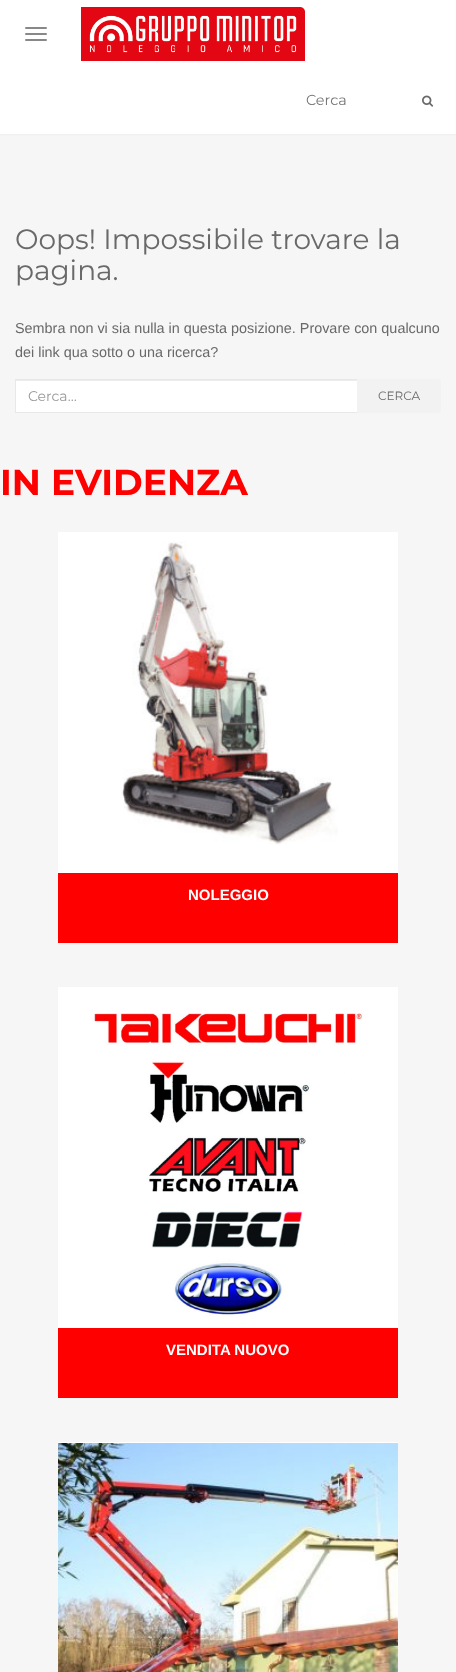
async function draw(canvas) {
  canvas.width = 456;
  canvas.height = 1672;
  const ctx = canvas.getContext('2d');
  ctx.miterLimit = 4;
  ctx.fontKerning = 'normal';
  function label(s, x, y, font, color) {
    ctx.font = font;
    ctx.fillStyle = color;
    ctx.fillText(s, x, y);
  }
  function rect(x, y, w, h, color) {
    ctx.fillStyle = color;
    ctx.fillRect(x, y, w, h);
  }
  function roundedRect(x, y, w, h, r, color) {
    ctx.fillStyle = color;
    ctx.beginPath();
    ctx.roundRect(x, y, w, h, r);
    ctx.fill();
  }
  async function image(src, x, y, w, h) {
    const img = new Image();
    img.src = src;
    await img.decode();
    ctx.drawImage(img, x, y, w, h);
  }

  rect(0, 0, 456, 1672, '#f6f6f6');
  ctx.fillStyle = '#e3e3e3';
  ctx.filter = 'blur(1px)';
  ctx.beginPath();
  ctx.rect(0, 0, 456, 134);
  ctx.fill();
  ctx.filter = 'none';
  rect(0, 0, 456, 134, '#fff');
  roundedRect(25, 27, 22, 2, 1, '#888');
  roundedRect(25, 33, 22, 2, 1, '#888');
  roundedRect(25, 39, 22, 2, 1, '#888');
  await image('assets/img1.png', 81, 7, 224, 54);
  label('Cerca', 306, 105, '14.4px Montserrat', '#757575');
  await image('assets/img2.png', 422, 95, 12, 12);
  label('Oops! Impossibile trovare la', 15, 249, '28px Montserrat', '#696969');
  label('pagina.', 15, 280, '28px Montserrat', '#696969');
  label('Sembra non vi sia nulla in questa posizione. Provare con qualcuno', 15, 333, '14.4px Liberation Sans', '#696969');
  label('dei link qua sotto o una ricerca?', 15, 357, '14.4px Liberation Sans', '#696969');
  rect(16, 381, 341, 31, '#fff');
  rect(16, 380, 341, 1, '#ececec');
  ctx.strokeStyle = '#e8e8e8';
  ctx.strokeRect(15.5, 379.5, 342, 33);
  label('Cerca…', 28, 401, '14px Montserrat', '#999');
  ctx.fillStyle = '#f2f2f2';
  ctx.beginPath();
  ctx.roundRect(357, 379, 84, 34, [0, 4, 4, 0]);
  ctx.fill();
  label('CERCA', 378, 400, '12px Montserrat', '#696969');
  label('IN EVIDENZA', 0, 495, 'bold 36px Montserrat', '#f00');
  rect(58, 532, 340, 341, '#fff');
  await image('assets/img3.png', 121, 541, 217, 304);
  rect(58, 873, 340, 70, '#f00');
  label('NOLEGGIO', 188, 900, 'bold 15px Liberation Sans', '#fff');
  rect(58, 987, 340, 341, '#fff');
  await image('assets/img4.png', 94, 1013, 272, 304);
  rect(58, 1328, 340, 70, '#f00');
  label('VENDITA NUOVO', 166, 1355, 'bold 15px Liberation Sans', '#fff');
  rect(58, 1442, 340, 1, '#fff');
  await image('assets/img5.png', 58, 1443, 340, 229);
}

draw(document.querySelector('canvas'));
